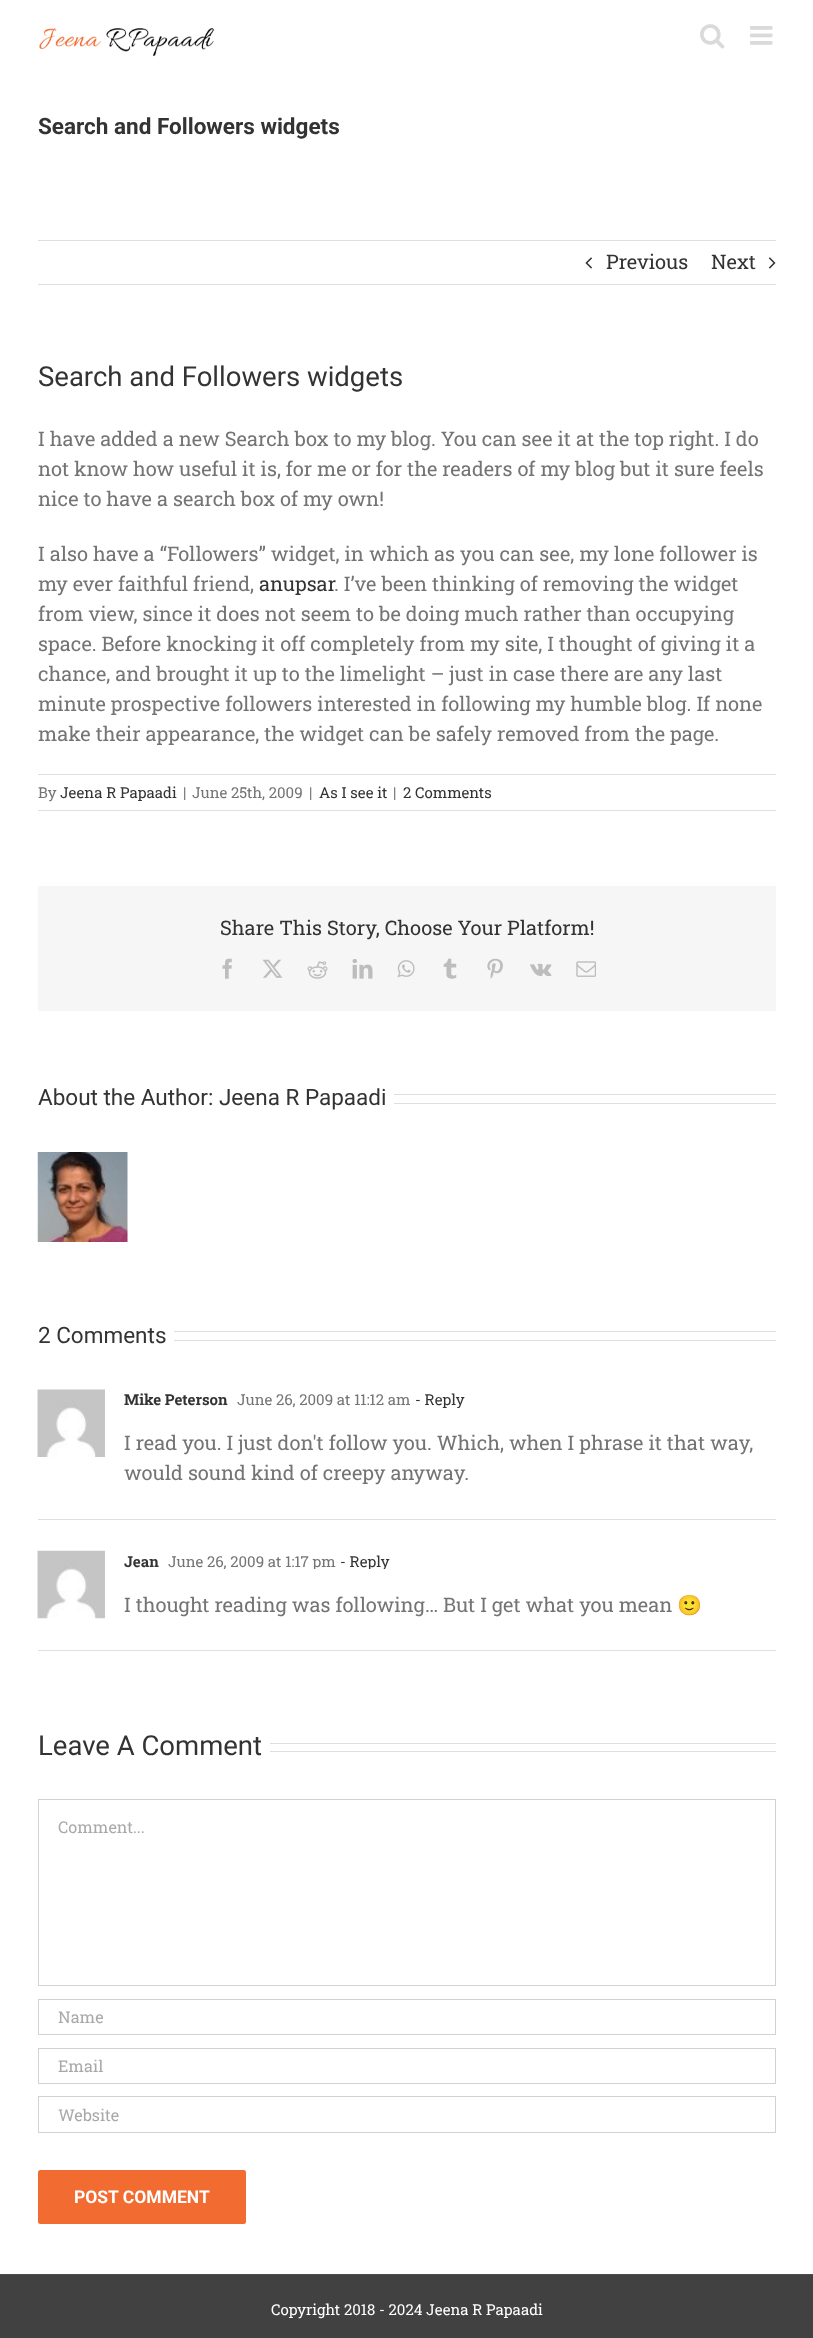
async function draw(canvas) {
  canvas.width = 813;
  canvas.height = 2338;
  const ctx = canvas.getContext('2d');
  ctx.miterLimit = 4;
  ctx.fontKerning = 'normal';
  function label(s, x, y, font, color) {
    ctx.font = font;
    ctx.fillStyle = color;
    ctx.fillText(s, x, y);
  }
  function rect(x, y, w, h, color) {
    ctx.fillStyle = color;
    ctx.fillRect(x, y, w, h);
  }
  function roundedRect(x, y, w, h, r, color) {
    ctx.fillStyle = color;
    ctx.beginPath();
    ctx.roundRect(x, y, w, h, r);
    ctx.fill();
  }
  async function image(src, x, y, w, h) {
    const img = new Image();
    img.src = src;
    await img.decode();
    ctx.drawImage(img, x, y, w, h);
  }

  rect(0, 0, 813, 2338, '#fff');
  await image('assets/img1.png', 39, 28, 175, 29);
  await image('assets/img2.png', 700, 24, 25, 25);
  await image('assets/img3.png', 750, 26, 23, 19);
  label('Search and Followers widgets', 38, 134, 'bold 22.5px Roboto', '#333');
  rect(38, 240, 738, 1, '#e0dede');
  rect(38, 284, 738, 1, '#e0dede');
  await image('assets/img4.png', 585, 257, 7, 12);
  label('Previous', 606, 269, '20px Roboto Slab', '#333');
  label('Next', 711, 269, '20px Roboto Slab', '#333');
  await image('assets/img5.png', 768, 257, 8, 12);
  label('Search and Followers widgets', 38, 386, '27.5px Roboto', '#333');
  label('I have added a new Search box to my blog. You can see it at the top right. I do', 38, 446, '20px Roboto Slab', '#747474');
  label('not know how useful it is, for me or for the readers of my blog but it sure feels', 38, 476, '20px Roboto Slab', '#747474');
  label('nice to have a search box of my own!', 38, 506, '20px Roboto Slab', '#747474');
  label('I also have a “Followers” widget, in which as you can see, my lone follower is', 38, 561, '20px Roboto Slab', '#747474');
  label('my ever faithful friend,', 38, 591, '20px Roboto Slab', '#747474');
  label('anupsar', 259, 591, '20px Roboto Slab', '#333');
  label('. I’ve been thinking of removing the widget', 334, 591, '20px Roboto Slab', '#747474');
  label('from view, since it does not seem to be doing much rather than occupying', 38, 621, '20px Roboto Slab', '#747474');
  label('space. Before knocking it off completely from my site, I thought of giving it a', 38, 651, '20px Roboto Slab', '#747474');
  label('chance, and brought it up to the limelight – just in case there are any last', 38, 681, '20px Roboto Slab', '#747474');
  label('minute prospective followers interested in following my humble blog. If none', 38, 711, '20px Roboto Slab', '#747474');
  label('make their appearance, the widget can be safely removed from the page.', 38, 741, '20px Roboto Slab', '#747474');
  rect(38, 774, 738, 1, '#e0dede');
  rect(38, 810, 738, 1, '#e0dede');
  label('By', 38, 798, '15px Roboto Slab', '#747474');
  label('Jeena R Papaadi', 60, 798, '15px Roboto Slab', '#333');
  label('|', 183, 798, '15px Roboto Slab', '#747474');
  label('June 25th, 2009', 192, 798, '15px Roboto Slab', '#747474');
  label('|', 309, 798, '15px Roboto Slab', '#747474');
  label('As I see it', 319, 798, '15px Roboto Slab', '#333');
  label('|', 393, 798, '15px Roboto Slab', '#747474');
  label('2 Comments', 403, 798, '15px Roboto Slab', '#333');
  rect(38, 886, 738, 125, '#f6f6f6');
  label('Share This Story, Choose Your Platform!', 220, 935, '20px Roboto Slab', '#333');
  await image('assets/img6.png', 222, 958, 10, 21);
  await image('assets/img7.png', 262, 959, 21, 19);
  await image('assets/img8.png', 307, 961, 21, 18);
  await image('assets/img9.png', 352, 959, 21, 20);
  await image('assets/img10.png', 397, 960, 18, 18);
  await image('assets/img11.png', 443, 958, 14, 21);
  await image('assets/img12.png', 487, 958, 16, 21);
  await image('assets/img13.png', 530, 963, 22, 13);
  await image('assets/img14.png', 576, 961, 20, 16);
  label('About the Author: Jeena R Papaadi', 38, 1105, '22.5px Roboto', '#333');
  rect(394, 1094, 382, 1, '#e0dede');
  rect(394, 1103, 382, 1, '#e0dede');
  await image('assets/img15.png', 37, 1152, 91, 90);
  label('2 Comments', 38, 1343, '22.5px Roboto', '#333');
  rect(174, 1331, 602, 1, '#e0dede');
  rect(174, 1340, 602, 1, '#e0dede');
  rect(38, 1519, 738, 1, '#e0dede');
  await image('assets/img16.png', 37, 1389, 68, 68);
  label('Mike Peterson', 124, 1405, 'bold 15px Roboto Slab', '#333');
  label('June 26, 2009 at 11:12 am', 237, 1405, '15px Roboto Slab', '#747474');
  ctx.save();
  ctx.beginPath();
  ctx.rect(124, 1390, 652, 18);
  ctx.clip();
  label('- Reply', 415, 1405, '15px Roboto Slab', '#333');
  ctx.restore();
  label('I read you. I just don\'t follow you. Which, when I phrase it that way,', 124, 1450, '20px Roboto Slab', '#747474');
  label('would sound kind of creepy anyway.', 124, 1480, '20px Roboto Slab', '#747474');
  rect(38, 1650, 738, 1, '#e0dede');
  await image('assets/img17.png', 37, 1550, 68, 69);
  label('Jean', 124, 1567, 'bold 15px Roboto Slab', '#333');
  ctx.save();
  ctx.beginPath();
  ctx.rect(124, 1551, 652, 18);
  ctx.clip();
  label('June 26, 2009 at 1:17 pm', 168, 1567, '15px Roboto Slab', '#747474');
  label('- Reply', 340, 1567, '15px Roboto Slab', '#333');
  ctx.restore();
  label('I thought reading was following… But I get what you mean', 124, 1612, '20px Roboto Slab', '#747474');
  label('🙂', 677, 1612, '20px Noto Color Emoji', '#747474');
  label('Leave A Comment', 38, 1755, '27.5px Roboto', '#333');
  rect(270, 1743, 506, 1, '#e0dede');
  rect(270, 1751, 506, 1, '#e0dede');
  ctx.strokeStyle = '#d2d2d2';
  ctx.strokeRect(38.5, 1799.5, 737, 186);
  label('Comment...', 58, 1833, '16.25px Roboto Slab', '#aaa9a9');
  ctx.strokeRect(38.5, 1999.5, 737, 35);
  label('Name', 58, 2023, '16.25px Roboto Slab', '#aaa9a9');
  ctx.strokeRect(38.5, 2048.5, 737, 35);
  label('Email', 58, 2072, '16.25px Roboto Slab', '#aaa9a9');
  ctx.strokeRect(38.5, 2096.5, 737, 36);
  label('Website', 58, 2121, '16.25px Roboto Slab', '#aaa9a9');
  roundedRect(38, 2170, 208, 54, 2.5, '#f26c31');
  label('POST COMMENT', 74, 2203, 'bold 17.5px Roboto', '#fff');
  rect(0, 2275, 813, 63, '#414141');
  rect(0, 2274, 813, 1, '#4b4c4d');
  label('Copyright 2018 - 2024 Jeena R Papaadi', 271, 2315, '15px Roboto Slab', '#fff');
}

draw(document.querySelector('canvas'));
